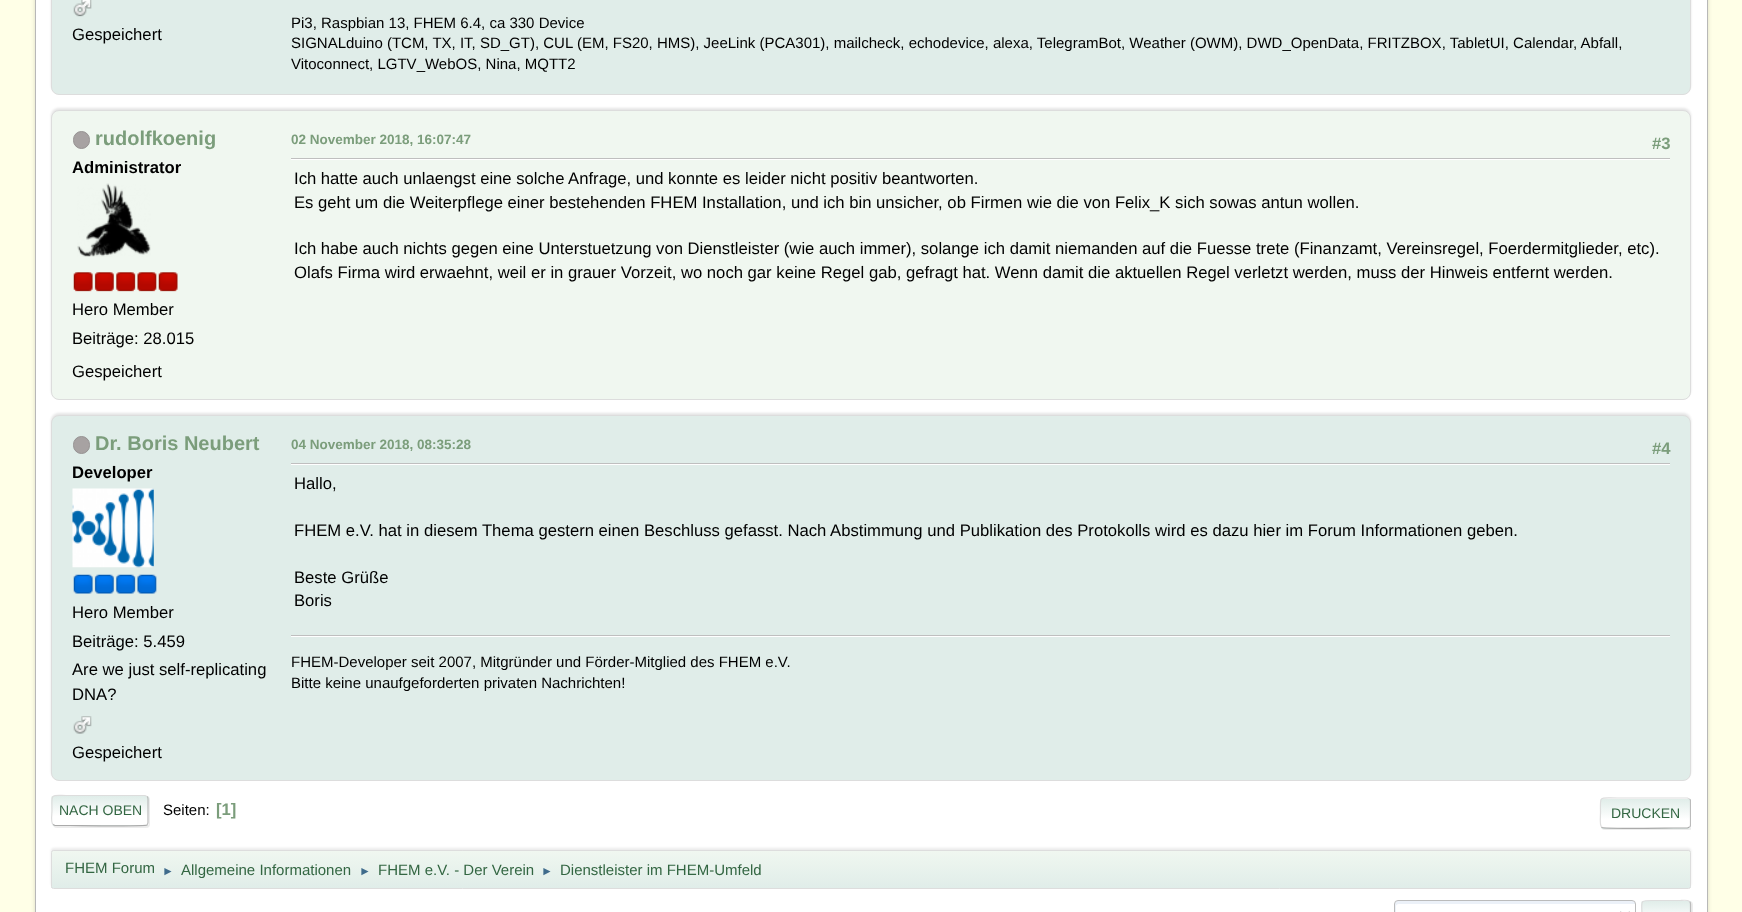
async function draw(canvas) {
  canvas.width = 1742;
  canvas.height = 912;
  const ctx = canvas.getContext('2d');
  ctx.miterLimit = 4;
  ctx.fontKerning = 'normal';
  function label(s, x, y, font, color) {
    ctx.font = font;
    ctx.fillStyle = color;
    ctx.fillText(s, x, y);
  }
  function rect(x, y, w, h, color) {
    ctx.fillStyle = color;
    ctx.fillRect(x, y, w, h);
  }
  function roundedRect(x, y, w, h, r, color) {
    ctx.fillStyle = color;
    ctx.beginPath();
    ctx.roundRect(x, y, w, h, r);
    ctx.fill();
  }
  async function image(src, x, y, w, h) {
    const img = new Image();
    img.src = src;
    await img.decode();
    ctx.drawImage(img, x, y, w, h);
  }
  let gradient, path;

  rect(0, 0, 1742, 912, '#ffffe7');
  ctx.fillStyle = '#00000024';
  ctx.filter = 'blur(2px)';
  ctx.beginPath();
  ctx.roundRect(35, -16, 1673, 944, 10);
  ctx.fill();
  ctx.filter = 'none';
  ctx.fillStyle = '#fff';
  ctx.beginPath();
  ctx.rect(35.5, -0.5, 1672, 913);
  ctx.fill();
  ctx.strokeStyle = '#b8b8b8';
  ctx.stroke();
  ctx.fillStyle = '#0000001a';
  ctx.filter = 'blur(1px)';
  ctx.beginPath();
  ctx.roundRect(51, -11, 1640, 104, 8);
  ctx.fill();
  ctx.filter = 'none';
  ctx.fillStyle = '#e0ede9';
  ctx.beginPath();
  ctx.roundRect(51.5, -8.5, 1639, 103, 7.5);
  ctx.fill();
  ctx.strokeStyle = '#ddd';
  ctx.stroke();
  await image('assets/img1.png', 73, 0, 19, 17);
  label('Gespeichert', 72, 40, '16.67px Liberation Sans', '#000');
  label('Pi3, Raspbian 13, FHEM 6.4, ca 330 Device', 291, 28, '15px Liberation Sans', '#000');
  label('SIGNALduino (TCM, TX, IT, SD_GT), CUL (EM, FS20, HMS), JeeLink (PCA301), mailcheck, echodevice, alexa, TelegramBot, Weather (OWM), DWD_OpenData, FRITZBOX, TabletUI, Calendar, Abfall,', 291, 48, '15px Liberation Sans', '#000');
  label('Vitoconnect, LGTV_WebOS, Nina, MQTT2', 291, 69, '15px Liberation Sans', '#000');
  ctx.fillStyle = '#0000001a';
  ctx.filter = 'blur(1px)';
  ctx.beginPath();
  ctx.roundRect(51, 108, 1640, 290, 8);
  ctx.fill();
  ctx.filter = 'none';
  ctx.fillStyle = '#f0f7f0';
  ctx.beginPath();
  ctx.roundRect(51.5, 110.5, 1639, 289, 7.5);
  ctx.fill();
  ctx.stroke();
  ctx.fillStyle = '#a7a2a2';
  ctx.beginPath();
  ctx.roundRect(73.5, 131.5, 16, 17, 8);
  ctx.fill();
  ctx.strokeStyle = '#969292';
  ctx.stroke();
  label('rudolfkoenig', 95, 145, 'bold 20px Liberation Sans', '#7b9d7b');
  label('Administrator', 72, 173, 'bold 16.67px Liberation Sans', '#000');
  await image('assets/img2.png', 77, 183, 74, 74);
  await image('assets/img3.png', 73, 272, 20, 20);
  await image('assets/img4.png', 94, 272, 20, 20);
  await image('assets/img5.png', 116, 272, 20, 20);
  await image('assets/img6.png', 137, 272, 20, 20);
  await image('assets/img7.png', 158, 272, 20, 20);
  label('Hero Member', 72, 315, '16.67px Liberation Sans', '#000');
  label('Beiträge: 28.015', 72, 344, '16.67px Liberation Sans', '#000');
  label('Gespeichert', 72, 377, '16.67px Liberation Sans', '#000');
  label('02 November 2018, 16:07:47', 291, 144, 'bold 13.5px Liberation Sans', '#7b9d7b');
  label('#3', 1652, 149, 'bold 16.67px Liberation Sans', '#7b9d7b');
  rect(291, 159, 1379, 1, '#fff');
  rect(291, 158, 1379, 1, '#bfbfbf');
  label('Ich hatte auch unlaengst eine solche Anfrage, und konnte es leider nicht positiv beantworten.', 294, 184, '16.67px Liberation Sans', '#000');
  label('Es geht um die Weiterpflege einer bestehenden FHEM Installation, und ich bin unsicher, ob Firmen wie die von Felix_K sich sowas antun wollen.', 294, 208, '16.67px Liberation Sans', '#000');
  label('Ich habe auch nichts gegen eine Unterstuetzung von Dienstleister (wie auch immer), solange ich damit niemanden auf die Fuesse trete (Finanzamt, Vereinsregel, Foerdermitglieder, etc).', 294, 254, '16.67px Liberation Sans', '#000');
  label('Olafs Firma wird erwaehnt, weil er in grauer Vorzeit, wo noch gar keine Regel gab, gefragt hat. Wenn damit die aktuellen Regel verletzt werden, muss der Hinweis entfernt werden.', 294, 278, '16.67px Liberation Sans', '#000');
  ctx.fillStyle = '#0000001a';
  ctx.filter = 'blur(1px)';
  ctx.beginPath();
  ctx.roundRect(51, 413, 1640, 366, 8);
  ctx.fill();
  ctx.filter = 'none';
  ctx.fillStyle = '#e0ede9';
  ctx.beginPath();
  ctx.roundRect(51.5, 415.5, 1639, 365, 7.5);
  ctx.fill();
  ctx.strokeStyle = '#ddd';
  ctx.stroke();
  ctx.fillStyle = '#a7a2a2';
  ctx.beginPath();
  ctx.roundRect(73.5, 436.5, 16, 17, 8);
  ctx.fill();
  ctx.strokeStyle = '#969292';
  ctx.stroke();
  label('Dr. Boris Neubert', 95, 450, 'bold 20px Liberation Sans', '#7b9d7b');
  label('Developer', 72, 478, 'bold 16.67px Liberation Sans', '#000');
  await image('assets/img8.png', 72, 488, 82, 80);
  await image('assets/img9.png', 73, 574, 20, 20);
  await image('assets/img10.png', 94, 574, 20, 20);
  await image('assets/img11.png', 116, 574, 20, 20);
  await image('assets/img12.png', 137, 574, 20, 20);
  label('Hero Member', 72, 618, '16.67px Liberation Sans', '#000');
  label('Beiträge: 5.459', 72, 647, '16.67px Liberation Sans', '#000');
  label('Are we just self-replicating', 72, 675, '16.67px Liberation Sans', '#000');
  label('DNA?', 72, 700, '16.67px Liberation Sans', '#000');
  await image('assets/img13.png', 73, 716, 19, 18);
  label('Gespeichert', 72, 758, '16.67px Liberation Sans', '#000');
  label('04 November 2018, 08:35:28', 291, 449, 'bold 13.5px Liberation Sans', '#7b9d7b');
  label('#4', 1652, 454, 'bold 16.67px Liberation Sans', '#7b9d7b');
  rect(291, 464, 1379, 1, '#fff');
  rect(291, 463, 1379, 1, '#bfbfbf');
  label('Hallo,', 294, 489, '16.67px Liberation Sans', '#000');
  label('FHEM e.V. hat in diesem Thema gestern einen Beschluss gefasst. Nach Abstimmung und Publikation des Protokolls wird es dazu hier im Forum Informationen geben.', 294, 536, '16.67px Liberation Sans', '#000');
  label('Beste Grüße', 294, 583, '16.67px Liberation Sans', '#000');
  label('Boris', 294, 606, '16.67px Liberation Sans', '#000');
  rect(291, 636, 1379, 1, '#fff');
  rect(291, 635, 1379, 1, '#bfbfbf');
  label('FHEM-Developer seit 2007, Mitgründer und Förder-Mitglied des FHEM e.V.', 291, 667, '15px Liberation Sans', '#000');
  label('Bitte keine unaufgeforderten privaten Nachrichten!', 291, 688, '15px Liberation Sans', '#000');
  ctx.fillStyle = '#dddddd91';
  ctx.filter = 'blur(0.5px)';
  ctx.beginPath();
  ctx.roundRect(53, 796, 97, 32, 4);
  ctx.fill();
  ctx.filter = 'none';
  roundedRect(51, 795, 98, 31, 4, '#fff');
  ctx.save();
  ctx.beginPath();
  ctx.roundRect(51, 795, 98, 31, 4);
  ctx.clip();
  gradient = ctx.createLinearGradient(100, 796, 100, 825);
  gradient.addColorStop(0, '#e0ede9');
  gradient.addColorStop(0.7, '#fff');
  ctx.fillStyle = gradient;
  ctx.fillRect(51, 796, 98, 29);
  gradient = ctx.createLinearGradient(100, 825, 100, 854);
  gradient.addColorStop(0, '#e0ede9');
  gradient.addColorStop(0.7, '#fff');
  ctx.fillStyle = gradient;
  ctx.fillRect(51, 825, 98, 1);
  ctx.restore();
  path = new Path2D('M147 796.5C148 797 148 798 148 799V822.5C148 823.5 148 824 147 824.5');
  ctx.strokeStyle = '#bbb';
  ctx.lineWidth = 1.2;
  ctx.stroke(path);
  path = new Path2D('M147 824.5V825C145 826.5 78.5 825.5 70 825.5H55L53 824.5');
  ctx.strokeStyle = '#aaa';
  ctx.stroke(path);
  path = new Path2D('M53 824.5C50.5 822.5 52 813.5 52 810.5C52 792 49.5 795.5 70 795.5H145L147 796.5');
  ctx.strokeStyle = '#ddd';
  ctx.stroke(path);
  label('NACH OBEN', 59, 815, '14px Liberation Sans', '#336642');
  label('Seiten:', 163, 815, '15px Liberation Sans', '#000');
  label('[1]', 216, 815, 'bold 16.67px Liberation Sans', '#7b9d7b');
  ctx.save();
  ctx.beginPath();
  ctx.rect(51, 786, 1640, 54);
  ctx.clip();
  ctx.fillStyle = '#dddddd91';
  ctx.filter = 'blur(0.5px)';
  ctx.beginPath();
  ctx.roundRect(1601, 799, 92, 31, 4);
  ctx.fill();
  ctx.filter = 'none';
  ctx.restore();
  roundedRect(1600, 798, 91, 31, 4, '#fff');
  ctx.save();
  ctx.beginPath();
  ctx.roundRect(1600, 798, 91, 31, 4);
  ctx.clip();
  gradient = ctx.createLinearGradient(1646, 799, 1646, 828);
  gradient.addColorStop(0, '#e0ede9');
  gradient.addColorStop(0.7, '#fff');
  ctx.fillStyle = gradient;
  ctx.fillRect(1600, 799, 91, 29);
  gradient = ctx.createLinearGradient(1646, 828, 1646, 856);
  gradient.addColorStop(0, '#e0ede9');
  gradient.addColorStop(0.7, '#fff');
  ctx.fillStyle = gradient;
  ctx.fillRect(1600, 828, 91, 1);
  ctx.restore();
  ctx.save();
  ctx.beginPath();
  ctx.rect(51, 786, 1640, 54);
  ctx.clip();
  path = new Path2D('M1689.5 799C1690.5 799.5 1690.5 800.5 1690.5 801V825C1690.5 826 1690.5 826.5 1689.5 827');
  ctx.strokeStyle = '#bbb';
  ctx.stroke(path);
  ctx.restore();
  path = new Path2D('M1689.5 827L1687.5 828H1673.5C1665.5 828 1604 829 1602 827.5L1601.5 827');
  ctx.strokeStyle = '#aaa';
  ctx.stroke(path);
  path = new Path2D('M1601.5 827C1599.5 825 1600.5 816 1600.5 813C1600.5 795 1598 798 1617.5 798H1687.5L1689.5 799');
  ctx.strokeStyle = '#ddd';
  ctx.stroke(path);
  label('DRUCKEN', 1611, 818, '14px Liberation Sans', '#336642');
  ctx.fillStyle = '#00000014';
  ctx.filter = 'blur(1px)';
  ctx.beginPath();
  ctx.roundRect(51, 848, 1640, 38, 2.5);
  ctx.fill();
  ctx.filter = 'none';
  ctx.save();
  ctx.beginPath();
  ctx.roundRect(51, 850, 1640, 39, 2.5);
  ctx.clip();
  gradient = ctx.createLinearGradient(871, 851, 871, 888);
  gradient.addColorStop(0, '#f0f7f0');
  gradient.addColorStop(1, '#e0ede9');
  ctx.fillStyle = gradient;
  ctx.fillRect(51, 851, 1640, 37);
  ctx.restore();
  ctx.beginPath();
  ctx.roundRect(51.5, 850.5, 1639, 38, 2);
  ctx.lineWidth = 1;
  ctx.stroke();
  label('FHEM Forum', 65, 873, '15px Liberation Sans', '#336642');
  label('►', 162, 875, '12px Liberation Sans', '#3f6b8c');
  label('Allgemeine Informationen', 181, 875, '15px Liberation Sans', '#336642');
  label('►', 359, 875, '12px Liberation Sans', '#3f6b8c');
  label('FHEM e.V. - Der Verein', 378, 875, '15px Liberation Sans', '#336642');
  label('►', 541, 875, '12px Liberation Sans', '#3f6b8c');
  label('Dienstleister im FHEM-Umfeld', 560, 875, '15px Liberation Sans', '#336642');
  ctx.fillStyle = '#ecf1f8';
  path = new Path2D('M1399 904H1635C1635 903 1635 902 1633 901H1398C1394 901 1395 905 1395 907V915C1395 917 1394 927 1396 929V906C1396 905 1397 904 1399 904Z');
  ctx.fill(path);
  ctx.beginPath();
  ctx.roundRect(1394.5, 900.5, 241, 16, 3.5);
  ctx.strokeStyle = '#bbb';
  ctx.stroke();
  path = new Path2D('M1620 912.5L1625 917.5L1630 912.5');
  ctx.strokeStyle = '#222';
  ctx.lineWidth = 2.5;
  ctx.stroke(path);
  ctx.fillStyle = '#dddddd91';
  ctx.filter = 'blur(0.5px)';
  ctx.beginPath();
  ctx.roundRect(1643, 901, 50, 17, 4);
  ctx.fill();
  ctx.filter = 'none';
  ctx.save();
  ctx.beginPath();
  ctx.roundRect(1641, 900, 50, 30, 4);
  ctx.clip();
  gradient = ctx.createLinearGradient(1666, 901, 1666, 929);
  gradient.addColorStop(0, '#e0ede9');
  gradient.addColorStop(0.7, '#fff');
  ctx.fillStyle = gradient;
  ctx.fillRect(1641, 901, 50, 11);
  ctx.restore();
  path = new Path2D('M1689.5 901.5C1690.5 902 1690.5 903 1690.5 904V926C1690.5 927 1690.5 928 1689.5 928.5');
  ctx.strokeStyle = '#bbb';
  ctx.lineWidth = 1.2;
  ctx.stroke(path);
  path = new Path2D('M1643 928.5C1640.5 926.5 1642 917.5 1642 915C1642 901 1639 900.5 1652 900.5H1680.5C1681.5 900.5 1687.5 899.5 1689.5 901.5');
  ctx.strokeStyle = '#ddd';
  ctx.stroke(path);
}

draw(document.querySelector('canvas'));
